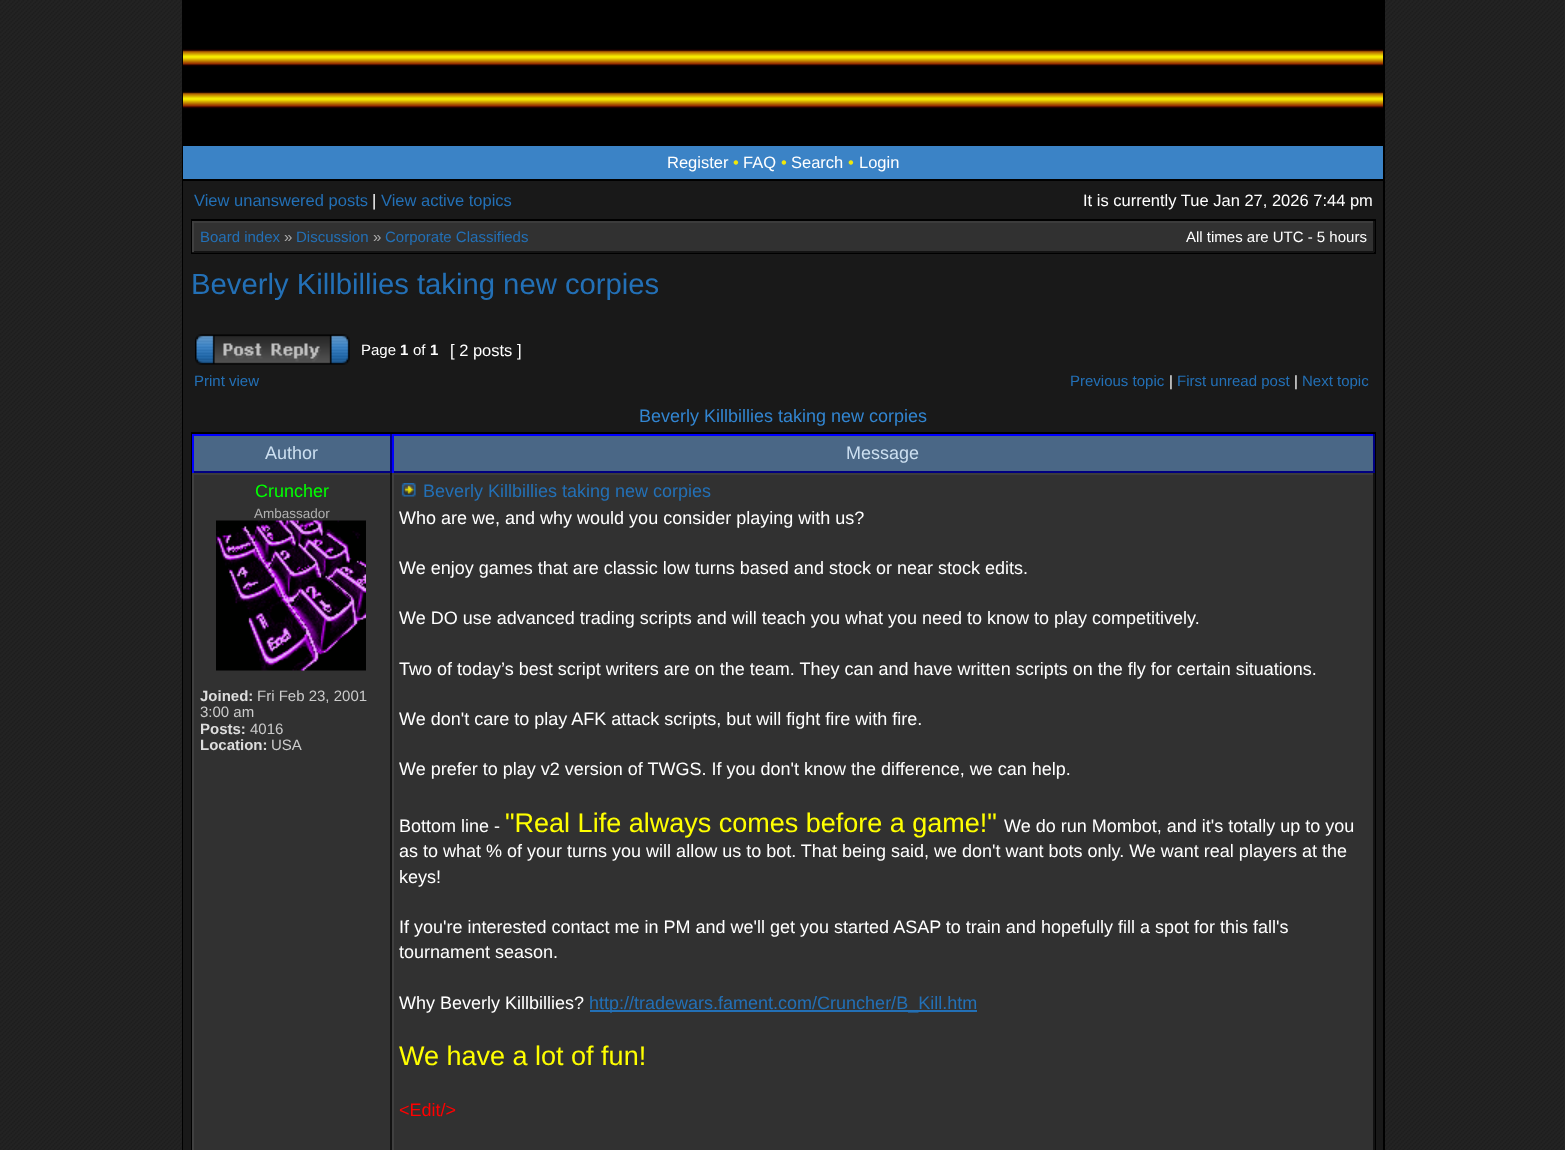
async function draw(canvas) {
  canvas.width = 1565;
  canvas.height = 1150;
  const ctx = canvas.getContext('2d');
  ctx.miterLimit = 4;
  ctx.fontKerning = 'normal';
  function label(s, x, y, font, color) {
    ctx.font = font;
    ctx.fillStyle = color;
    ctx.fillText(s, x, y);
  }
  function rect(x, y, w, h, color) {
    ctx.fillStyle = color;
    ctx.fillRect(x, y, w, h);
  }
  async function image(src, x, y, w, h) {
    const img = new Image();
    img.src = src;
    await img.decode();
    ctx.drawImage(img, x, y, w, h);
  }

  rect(0, 0, 1565, 1150, '#242424');
  await image('assets/img1.png', 0, 0, 1564, 1150);
  rect(1383, 0, 2, 1150, '#000');
  rect(182, 0, 1, 1150, '#000');
  await image('assets/img2.png', 183, 0, 1200, 144);
  rect(183, 146, 1200, 33, '#3b83c6');
  rect(183, 144, 1200, 2, '#000');
  rect(183, 179, 1200, 2, '#000');
  label('Register', 667, 168, '16.5px Liberation Sans', '#fff');
  label('•', 733, 168, '16.5px Liberation Sans', '#f0e80a');
  label('FAQ', 743, 168, '16.5px Liberation Sans', '#fff');
  label('•', 781, 168, '16.5px Liberation Sans', '#f0e80a');
  label('Search', 791, 168, '16.5px Liberation Sans', '#fff');
  label('•', 848, 168, '16.5px Liberation Sans', '#f0e80a');
  label('Login', 859, 168, '16.5px Liberation Sans', '#fff');
  rect(183, 181, 1200, 969, '#191919');
  label('View unanswered posts', 194, 206, '16.5px Liberation Sans', '#2370b6');
  label('|', 372, 206, '16.5px Liberation Sans', '#fff');
  label('View active topics', 381, 206, '16.5px Liberation Sans', '#2370b6');
  label('It is currently Tue Jan 27, 2026 7:44 pm', 1083, 206, '16.5px Liberation Sans', '#fff');
  ctx.strokeStyle = '#000';
  ctx.lineWidth = 2;
  ctx.strokeRect(192, 220, 1183, 33);
  rect(194, 223, 1179, 28, '#313131');
  rect(192, 221, 1182, 2, '#3c3c3c');
  rect(1373, 221, 2, 31, '#121212');
  rect(192, 251, 1182, 2, '#131313');
  rect(192, 221, 2, 31, '#404040');
  label('Board index', 200, 242, '15px Liberation Sans', '#2370b6');
  label('»', 284, 242, '15px Liberation Sans', '#aaa');
  label('Discussion', 296, 242, '15px Liberation Sans', '#2370b6');
  label('»', 373, 242, '15px Liberation Sans', '#aaa');
  label('Corporate Classifieds', 385, 242, '15px Liberation Sans', '#2370b6');
  label('All times are UTC - 5 hours', 1186, 242, '15px Liberation Sans', '#fff');
  label('Beverly Killbillies taking new corpies', 191, 294, '29.25px Liberation Sans', '#2370b6');
  await image('assets/img3.png', 195, 334, 155, 31);
  label('Page', 361, 355, '15px Liberation Sans', '#fff');
  label('1', 400, 355, 'bold 15px Liberation Sans', '#fff');
  label('of', 413, 355, '15px Liberation Sans', '#fff');
  label('1', 430, 355, 'bold 15px Liberation Sans', '#fff');
  label('[ 2 posts ]', 450, 356, '16.5px Liberation Sans', '#fff');
  label('Print view', 194, 386, '15px Liberation Sans', '#2370b6');
  label('Previous topic', 1070, 386, '15px Liberation Sans', '#2370b6');
  label('|', 1169, 386, '15px Liberation Sans', '#fff');
  label('First unread post', 1177, 386, '15px Liberation Sans', '#2370b6');
  label('|', 1294, 386, '15px Liberation Sans', '#fff');
  label('Next topic', 1302, 386, '15px Liberation Sans', '#2370b6');
  label('Beverly Killbillies taking new corpies', 639, 422, '18px Liberation Sans', '#3285d0');
  ctx.strokeRect(192, 433, 1183, 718);
  rect(194, 436, 196, 35, '#4a6786');
  rect(192, 434, 1182, 2, '#00f');
  rect(390, 434, 2, 39, '#000080');
  rect(192, 471, 200, 2, '#000080');
  rect(192, 434, 2, 39, '#00f');
  label('Author', 265, 459, '18px Liberation Sans', '#ccdff0');
  rect(394, 436, 979, 35, '#4a6786');
  rect(1373, 434, 2, 39, '#000080');
  rect(392, 471, 982, 2, '#000080');
  rect(392, 434, 2, 39, '#00f');
  label('Message', 846, 459, '18px Liberation Sans', '#ccdff0');
  rect(194, 475, 196, 675, '#313131');
  rect(192, 473, 1182, 2, '#3c3c3c');
  rect(390, 473, 2, 677, '#121212');
  rect(192, 473, 2, 677, '#404040');
  label('Cruncher', 255, 497, '18px Liberation Sans', '#0f0');
  label('Ambassador', 254, 518, '13.5px Liberation Sans', '#b0b0b0');
  await image('assets/img4.png', 216, 520, 150, 151);
  label('Joined:', 200, 701, 'bold 15px Liberation Sans', '#ddd');
  label('Fri Feb 23, 2001', 257, 701, '15px Liberation Sans', '#ccc');
  label('3:00 am', 200, 717, '15px Liberation Sans', '#ccc');
  label('Posts:', 200, 734, 'bold 15px Liberation Sans', '#ddd');
  label('4016', 250, 734, '15px Liberation Sans', '#ccc');
  label('Location:', 200, 750, 'bold 15px Liberation Sans', '#ddd');
  label('USA', 271, 750, '15px Liberation Sans', '#ccc');
  rect(394, 475, 979, 675, '#313131');
  rect(1373, 473, 2, 677, '#121212');
  rect(392, 473, 2, 677, '#404040');
  await image('assets/img5.png', 401, 483, 15, 14);
  label('Beverly Killbillies taking new corpies', 423, 497, '18px Liberation Sans', '#2370b6');
  label('Who are we, and why would you consider playing with us?', 399, 524, '18px Liberation Sans', '#fff');
  label('We enjoy games that are classic low turns based and stock or near stock edits.', 399, 574, '18px Liberation Sans', '#fff');
  label('We DO use advanced trading scripts and will teach you what you need to know to play competitively.', 399, 624, '18px Liberation Sans', '#fff');
  label('Two of today’s best script writers are on the team. They can and have written scripts on the fly for certain situations.', 399, 675, '18px Liberation Sans', '#fff');
  label('We don\'t care to play AFK attack scripts, but will fight fire with fire.', 399, 725, '18px Liberation Sans', '#fff');
  label('We prefer to play v2 version of TWGS. If you don\'t know the difference, we can help.', 399, 775, '18px Liberation Sans', '#fff');
  label('Bottom line -', 399, 832, '18px Liberation Sans', '#fff');
  label('"Real Life always comes before a game!"', 505, 832, '27px Liberation Sans', '#ff0');
  label('We do run Mombot, and it\'s totally up to you', 1004, 832, '18px Liberation Sans', '#fff');
  label('as to what % of your turns you will allow us to bot. That being said, we don\'t want bots only. We want real players at the', 399, 857, '18px Liberation Sans', '#fff');
  label('keys!', 399, 883, '18px Liberation Sans', '#fff');
  label('If you\'re interested contact me in PM and we\'ll get you started ASAP to train and hopefully fill a spot for this fall\'s', 399, 933, '18px Liberation Sans', '#fff');
  label('tournament season.', 399, 958, '18px Liberation Sans', '#fff');
  label('Why Beverly Killbillies?', 399, 1009, '18px Liberation Sans', '#fff');
  rect(590, 1010, 387, 2, '#2370b6');
  label('http://tradewars.fament.com/Cruncher/B_Kill.htm', 589, 1009, '18px Liberation Sans', '#2370b6');
  label('We have a lot of fun!', 399, 1065, '27px Liberation Sans', '#ff0');
  label('<Edit/>', 399, 1116, '18px Liberation Sans', '#f00');
}

draw(document.querySelector('canvas'));
